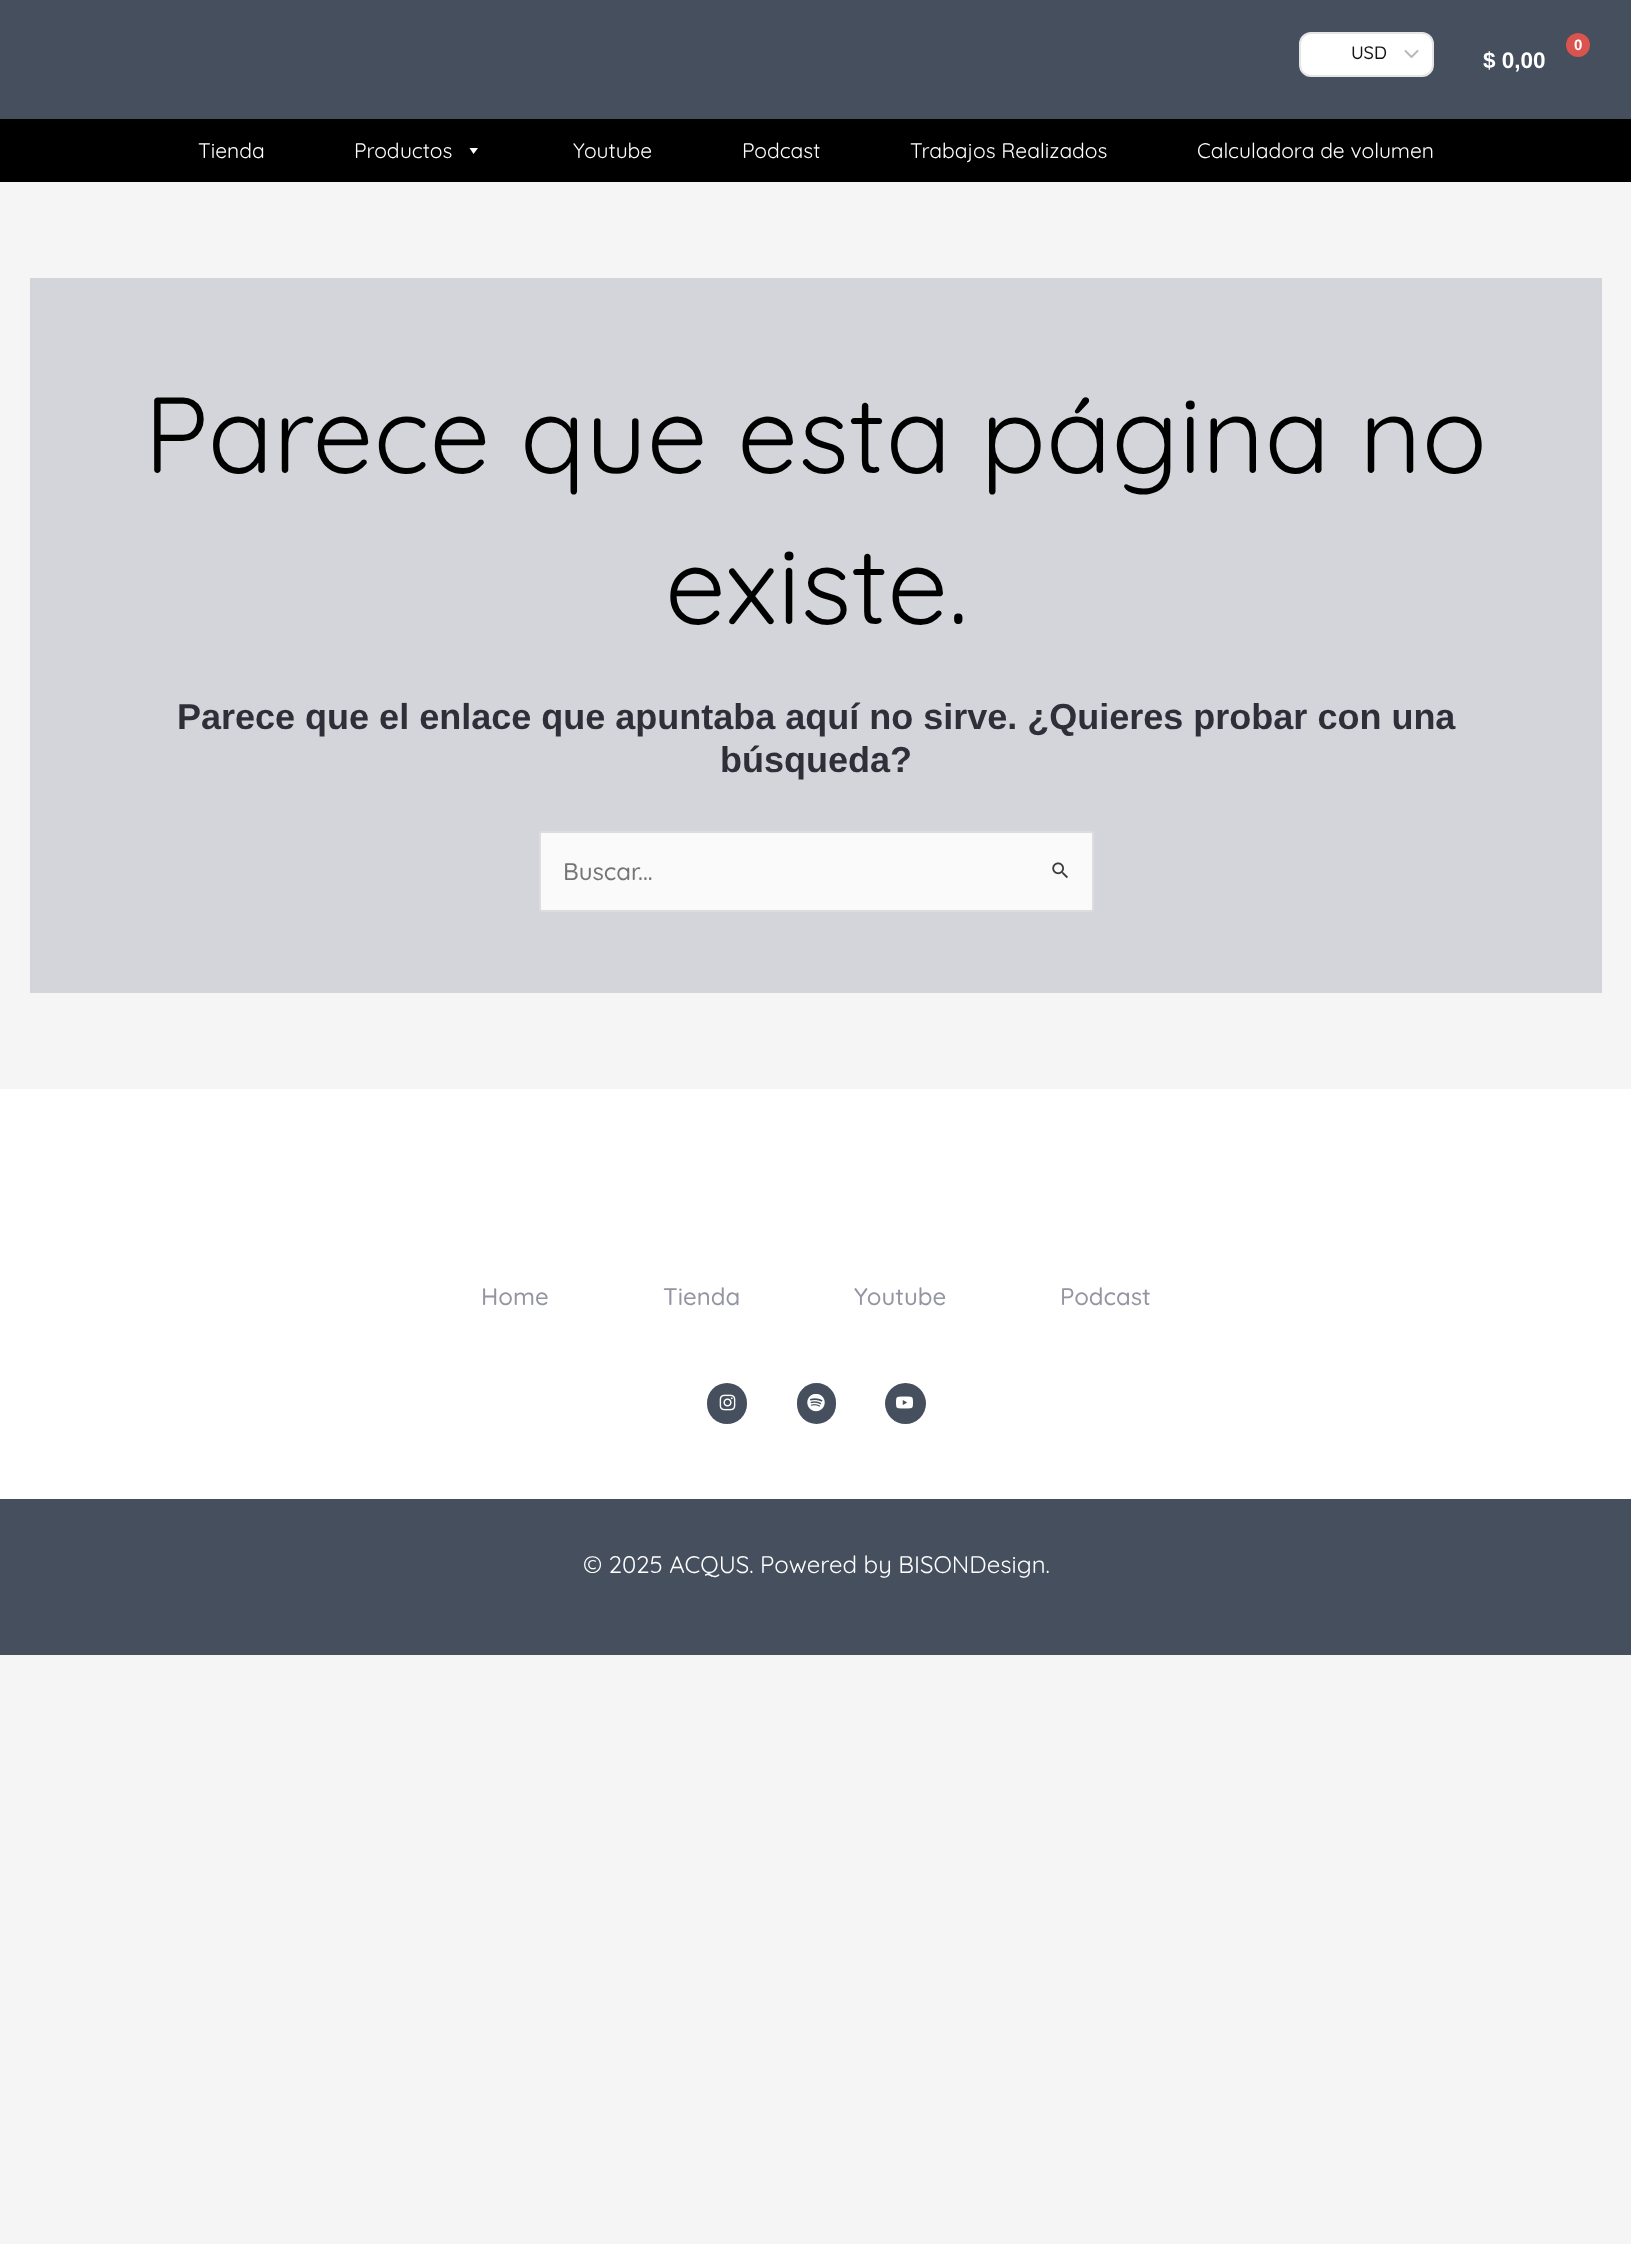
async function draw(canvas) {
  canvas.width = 1631;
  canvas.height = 2244;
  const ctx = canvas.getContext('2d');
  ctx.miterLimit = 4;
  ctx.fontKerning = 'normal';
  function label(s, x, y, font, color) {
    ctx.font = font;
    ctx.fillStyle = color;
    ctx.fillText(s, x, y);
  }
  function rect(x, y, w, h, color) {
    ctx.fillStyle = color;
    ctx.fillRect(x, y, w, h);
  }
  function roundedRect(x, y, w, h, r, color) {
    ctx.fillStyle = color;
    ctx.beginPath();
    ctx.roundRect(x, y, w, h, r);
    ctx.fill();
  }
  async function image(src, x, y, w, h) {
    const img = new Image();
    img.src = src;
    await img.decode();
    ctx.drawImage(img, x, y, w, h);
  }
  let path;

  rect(0, 0, 1631, 2244, '#f5f5f5');
  rect(0, 0, 1631, 119, '#454f5e');
  ctx.fillStyle = '#fff';
  ctx.beginPath();
  ctx.roundRect(1300, 33, 133, 43, 11);
  ctx.fill();
  ctx.strokeStyle = '#e5e5e5';
  ctx.lineWidth = 2;
  ctx.stroke();
  label('USD', 1351, 59, '500 18px Quicksand', '#151515');
  path = new Path2D('M1405.5 51L1411.5 57L1417.5 51');
  ctx.strokeStyle = '#b9b9b9';
  ctx.lineCap = 'round';
  ctx.lineJoin = 'round';
  ctx.stroke(path);
  ctx.fillStyle = '#d9534f';
  ctx.beginPath();
  ctx.arc(1578, 45, 12, 0, 2 * Math.PI);
  ctx.fill();
  label('0', 1574, 50, 'bold 15px Liberation Sans', '#fff');
  label('$ 0,00', 1483, 68, 'bold 22.5px Liberation Sans', '#fff');
  rect(0, 119, 1631, 63, '#000');
  label('Tienda', 198, 158, '21px Quicksand', '#fff');
  label('Productos', 354, 158, '21px Quicksand', '#fff');
  path = new Path2D('M478 148L473.5 154L469.5 148Z');
  ctx.fill(path);
  label('Youtube', 573, 158, '21px Quicksand', '#fff');
  label('Podcast', 742, 158, '21px Quicksand', '#fff');
  label('Trabajos Realizados', 910, 158, '21px Quicksand', '#fff');
  label('Calculadora de volumen', 1197, 158, '21px Quicksand', '#fff');
  rect(30, 278, 1572, 715, '#d4d5da');
  label('Parece que esta página no', 144, 473, '108px Quicksand', '#000');
  label('existe.', 665, 624, '108px Quicksand', '#000');
  label('Parece que el enlace que apuntaba aquí no sirve. ¿Quieres probar con una', 177, 729, 'bold 36px Liberation Sans', '#2e2f38');
  label('búsqueda?', 720, 772, 'bold 36px Liberation Sans', '#2e2f38');
  ctx.fillStyle = '#fafafa';
  ctx.beginPath();
  ctx.roundRect(540, 832, 553, 79, 2);
  ctx.fill();
  ctx.strokeStyle = '#ddd';
  ctx.lineJoin = 'miter';
  ctx.stroke();
  label('Buscar...', 563, 880, '500 24px Quicksand', '#757575');
  await image('assets/img1.png', 1052, 862, 16, 17);
  rect(0, 1089, 1631, 410, '#fff');
  label('Home', 481, 1305, '500 24px Quicksand', '#9395a1');
  label('Tienda', 663, 1305, '500 24px Quicksand', '#9395a1');
  label('Youtube', 854, 1305, '500 24px Quicksand', '#9395a1');
  label('Podcast', 1060, 1305, '500 24px Quicksand', '#9395a1');
  roundedRect(707, 1383, 40, 41, 20, '#454f5e');
  await image('assets/img2.png', 719, 1394, 17, 17);
  roundedRect(797, 1383, 39, 41, 19.5, '#454f5e');
  await image('assets/img3.png', 807, 1394, 18, 18);
  ctx.beginPath();
  ctx.arc(905.5, 1403.5, 20.5, 0, 2 * Math.PI);
  ctx.fill();
  await image('assets/img4.png', 896, 1396, 18, 13);
  rect(0, 1499, 1631, 156, '#454f5e');
  label('© 2025 ACQUS. Powered by BISONDesign.', 583, 1573, '24px Quicksand', '#fff');
}

draw(document.querySelector('canvas'));
